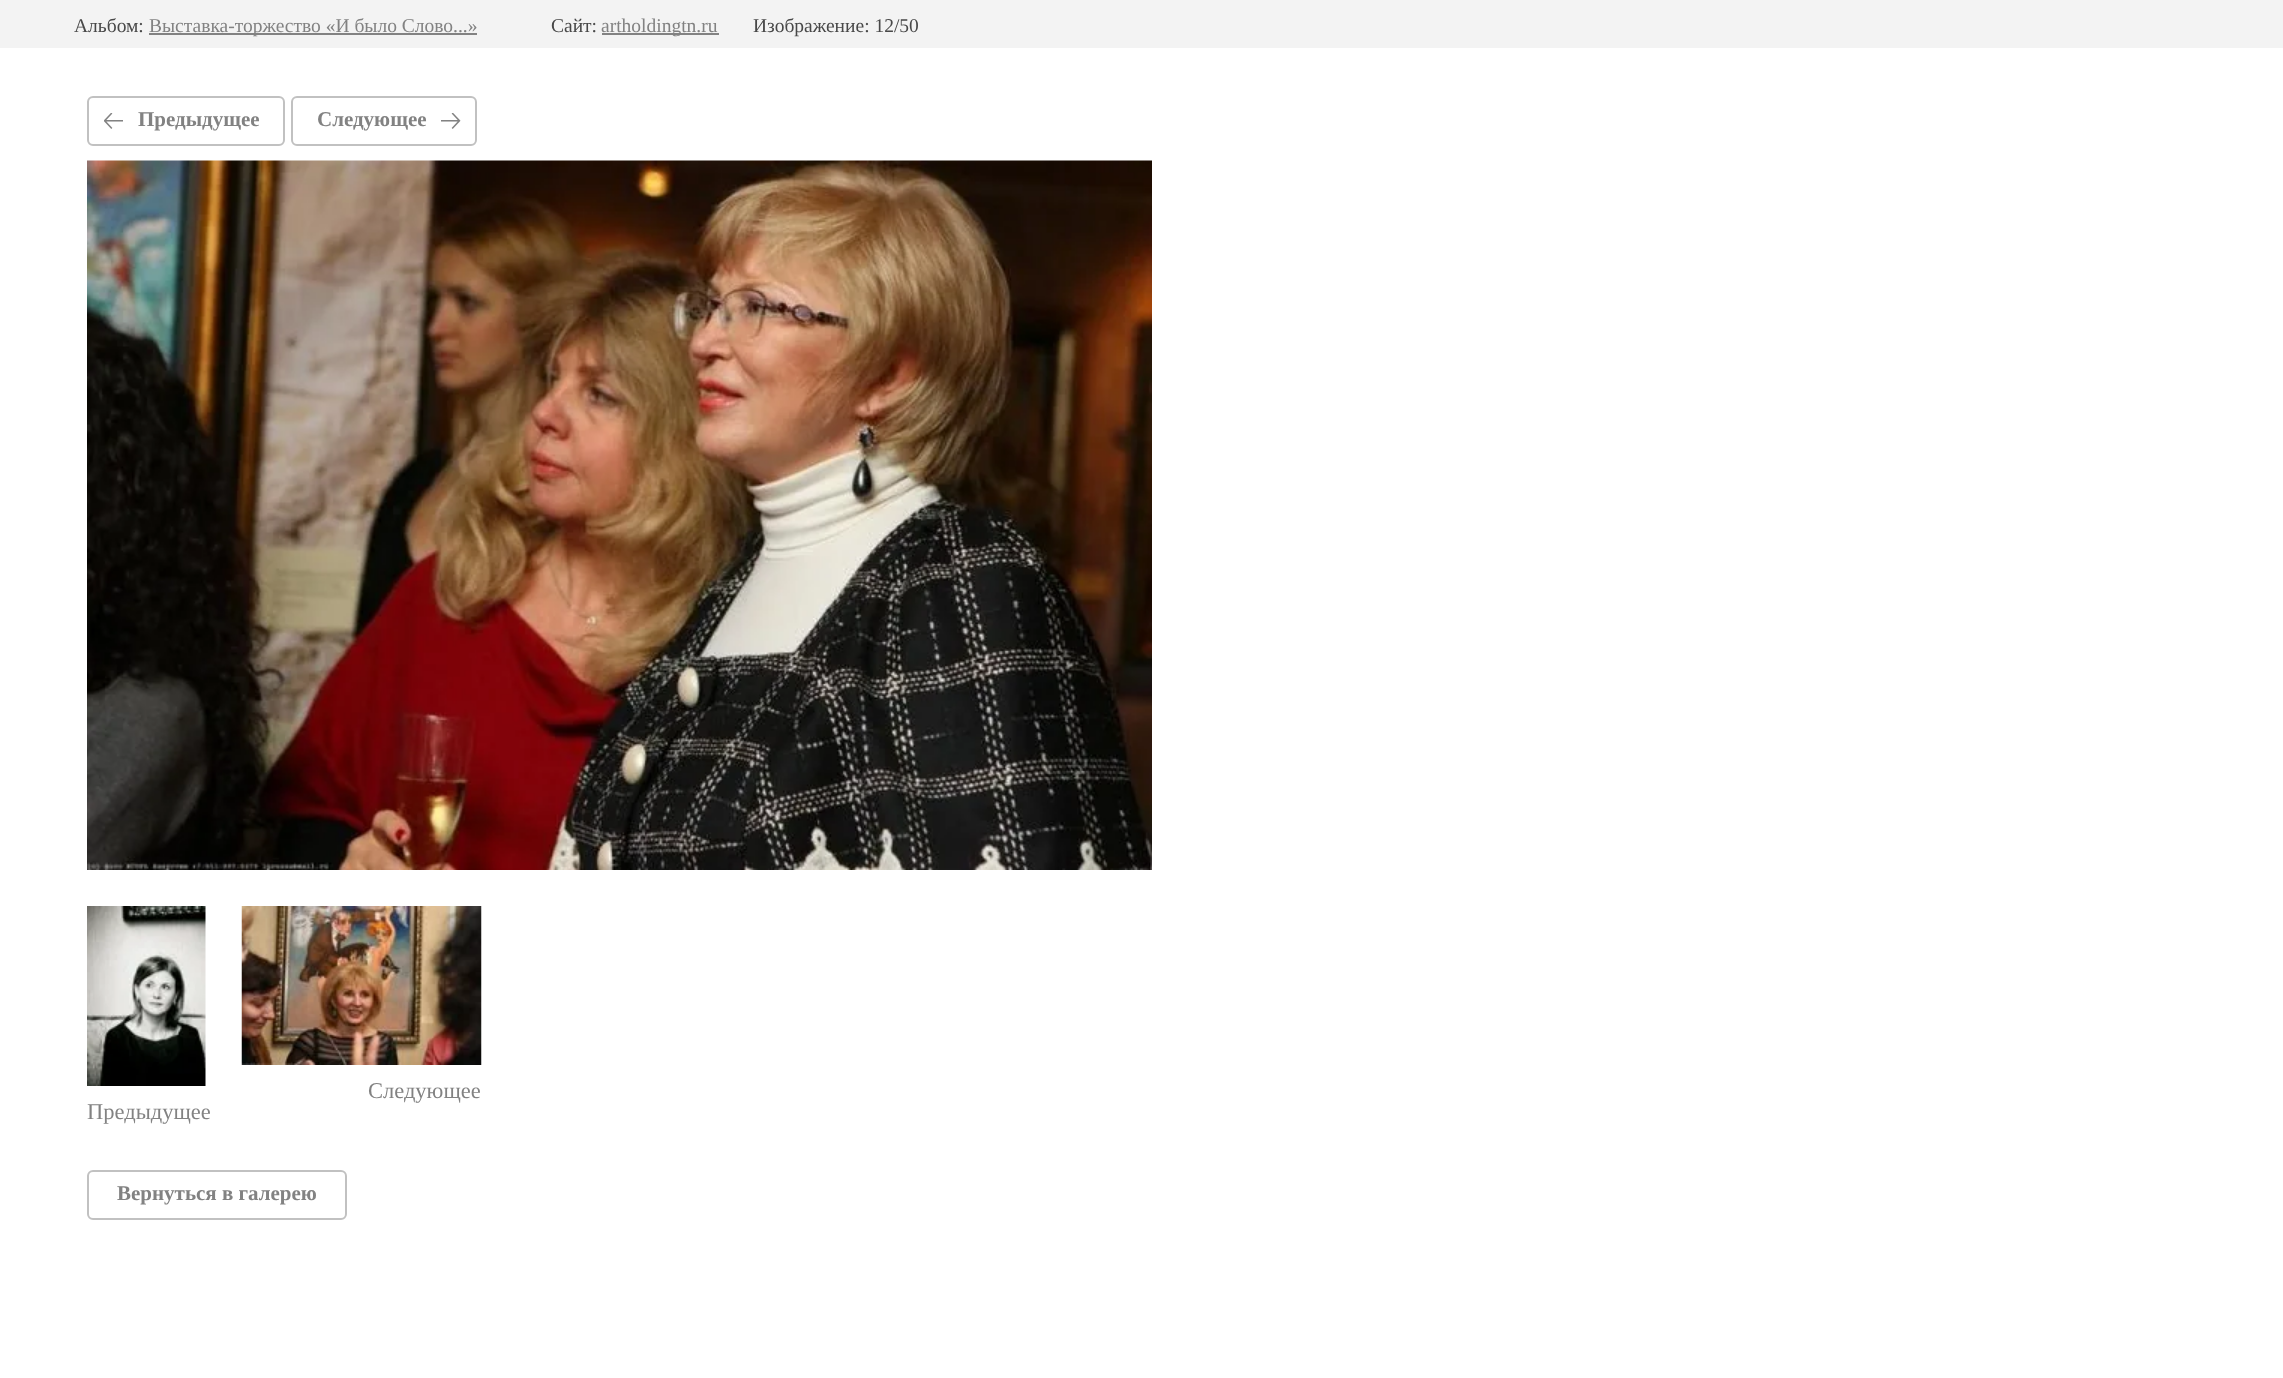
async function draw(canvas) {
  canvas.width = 2283;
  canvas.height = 1378;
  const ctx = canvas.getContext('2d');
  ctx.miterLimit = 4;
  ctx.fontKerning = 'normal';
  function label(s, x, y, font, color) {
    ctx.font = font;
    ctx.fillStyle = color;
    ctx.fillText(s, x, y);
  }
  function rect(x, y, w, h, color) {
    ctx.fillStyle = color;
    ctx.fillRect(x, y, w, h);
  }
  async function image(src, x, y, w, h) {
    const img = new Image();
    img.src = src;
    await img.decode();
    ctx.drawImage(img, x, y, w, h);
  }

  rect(0, 0, 2283, 1378, '#fff');
  rect(0, 0, 2283, 48, '#f3f3f3');
  label('Альбом:', 74, 32, '19.5px Liberation Serif', '#484848');
  rect(149, 33, 328, 2, '#828282');
  label('Выставка-торжество «И было Слово...»', 149, 32, '19.5px Liberation Serif', '#828282');
  label('Сайт:', 551, 32, '19.5px Liberation Serif', '#484848');
  rect(602, 33, 117, 2, '#828282');
  label('artholdingtn.ru', 601, 32, '19.5px Liberation Serif', '#828282');
  label('Изображение: 12/50', 753, 32, '19.5px Liberation Serif', '#484848');
  ctx.beginPath();
  ctx.roundRect(88, 97, 196, 48, 5);
  ctx.strokeStyle = '#c1c1c1';
  ctx.lineWidth = 2;
  ctx.stroke();
  await image('assets/img1.png', 104, 113, 19, 16);
  label('Предыдущее', 138, 126, 'bold 21px Liberation Serif', '#828282');
  ctx.beginPath();
  ctx.roundRect(292, 97, 184, 48, 5);
  ctx.stroke();
  label('Следующее', 317, 126, 'bold 21px Liberation Serif', '#828282');
  await image('assets/img2.png', 441, 113, 20, 16);
  await image('assets/img3.png', 87, 160, 1065, 710);
  await image('assets/img4.png', 241, 906, 241, 159);
  label('Следующее', 368, 1098, '22.5px Liberation Serif', '#828282');
  await image('assets/img5.png', 87, 906, 119, 180);
  label('Предыдущее', 87, 1119, '22.5px Liberation Serif', '#828282');
  ctx.beginPath();
  ctx.roundRect(88, 1171, 258, 48, 5);
  ctx.stroke();
  label('Вернуться в галерею', 117, 1200, 'bold 21px Liberation Serif', '#828282');
}

draw(document.querySelector('canvas'));
